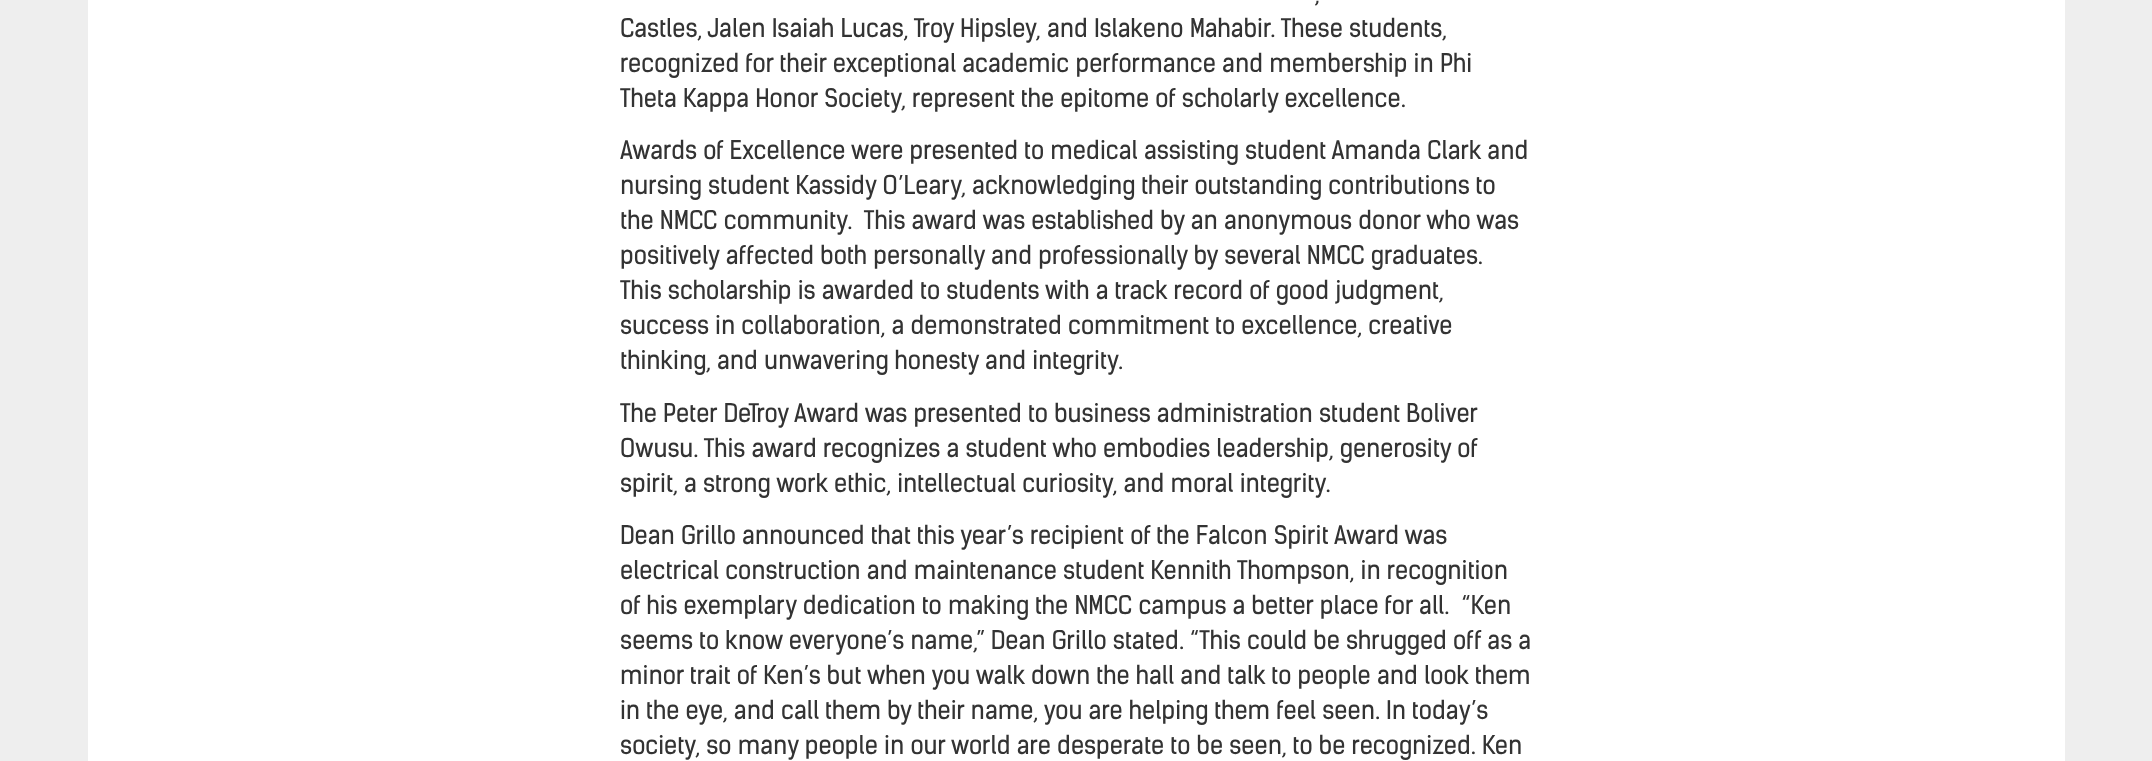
async function draw(canvas) {
  canvas.width = 2152;
  canvas.height = 761;
  const ctx = canvas.getContext('2d');
  ctx.miterLimit = 4;
  ctx.fontKerning = 'normal';
  function label(s, x, y, font, color) {
    ctx.font = font;
    ctx.fillStyle = color;
    ctx.fillText(s, x, y);
  }
  function rect(x, y, w, h, color) {
    ctx.fillStyle = color;
    ctx.fillRect(x, y, w, h);
  }

  rect(0, 0, 2152, 761, '#eee');
  rect(88, 0, 1977, 761, '#fff');
  label(',', 1315, 2, '24.5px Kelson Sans', '#333');
  label('Castles, Jalen Isaiah Lucas, Troy Hipsley, and Islakeno Mahabir. These students,', 620, 37, '24.5px Kelson Sans', '#333');
  label('recognized for their exceptional academic performance and membership in Phi', 620, 72, '24.5px Kelson Sans', '#333');
  label('Theta Kappa Honor Society, represent the epitome of scholarly excellence.', 620, 107, '24.5px Kelson Sans', '#333');
  label('Awards of Excellence were presented to medical assisting student Amanda Clark and', 620, 159, '24.5px Kelson Sans', '#333');
  label('nursing student Kassidy O’Leary, acknowledging their outstanding contributions to', 620, 194, '24.5px Kelson Sans', '#333');
  label('the NMCC community.  This award was established by an anonymous donor who was', 620, 229, '24.5px Kelson Sans', '#333');
  label('positively affected both personally and professionally by several NMCC graduates.', 620, 264, '24.5px Kelson Sans', '#333');
  label('This scholarship is awarded to students with a track record of good judgment,', 620, 299, '24.5px Kelson Sans', '#333');
  label('success in collaboration, a demonstrated commitment to excellence, creative', 620, 334, '24.5px Kelson Sans', '#333');
  label('thinking, and unwavering honesty and integrity.', 620, 369, '24.5px Kelson Sans', '#333');
  label('The Peter DeTroy Award was presented to business administration student Boliver', 620, 422, '24.5px Kelson Sans', '#333');
  label('Owusu. This award recognizes a student who embodies leadership, generosity of', 620, 457, '24.5px Kelson Sans', '#333');
  label('spirit, a strong work ethic, intellectual curiosity, and moral integrity.', 620, 492, '24.5px Kelson Sans', '#333');
  label('Dean Grillo announced that this year’s recipient of the Falcon Spirit Award was', 620, 544, '24.5px Kelson Sans', '#333');
  label('electrical construction and maintenance student Kennith Thompson, in recognition', 620, 579, '24.5px Kelson Sans', '#333');
  label('of his exemplary dedication to making the NMCC campus a better place for all.  “Ken', 620, 614, '24.5px Kelson Sans', '#333');
  label('seems to know everyone’s name,” Dean Grillo stated. “This could be shrugged off as a', 620, 649, '24.5px Kelson Sans', '#333');
  label('minor trait of Ken’s but when you walk down the hall and talk to people and look them', 620, 684, '24.5px Kelson Sans', '#333');
  label('in the eye, and call them by their name, you are helping them feel seen. In today’s', 620, 719, '24.5px Kelson Sans', '#333');
  label('society, so many people in our world are desperate to be seen, to be recognized. Ken', 620, 754, '24.5px Kelson Sans', '#333');
}

draw(document.querySelector('canvas'));
